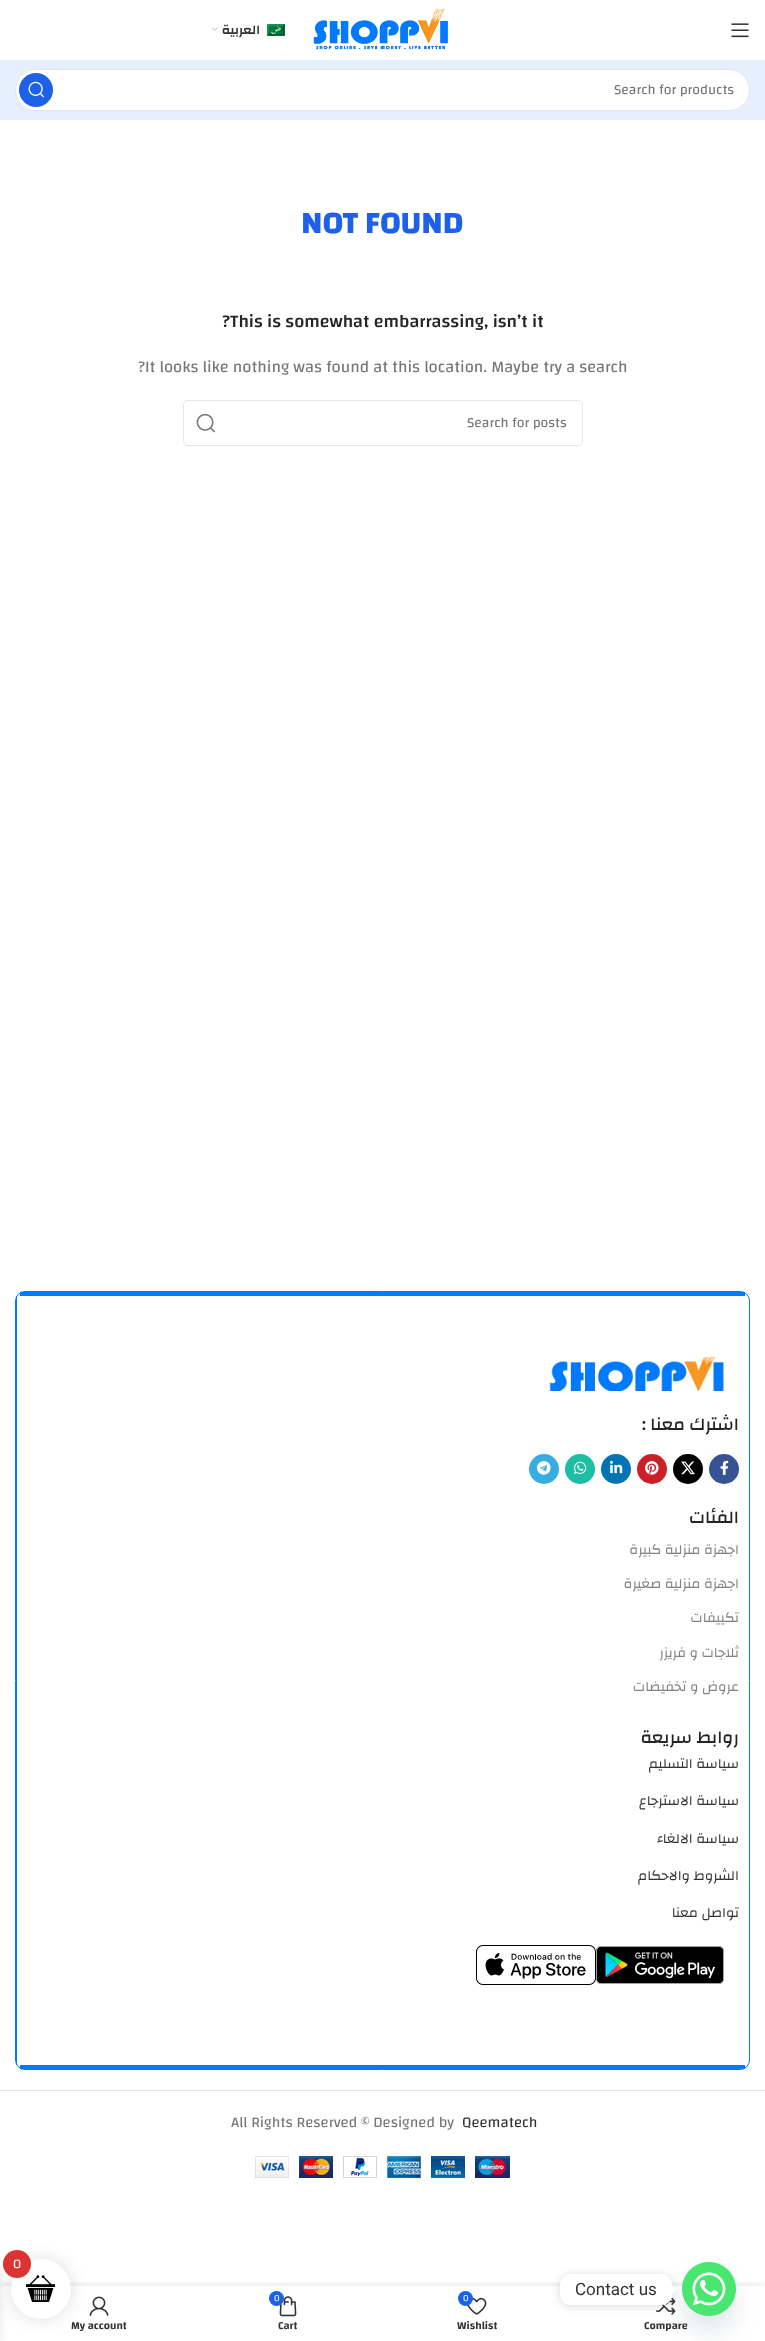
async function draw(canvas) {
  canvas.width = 765;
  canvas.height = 2341;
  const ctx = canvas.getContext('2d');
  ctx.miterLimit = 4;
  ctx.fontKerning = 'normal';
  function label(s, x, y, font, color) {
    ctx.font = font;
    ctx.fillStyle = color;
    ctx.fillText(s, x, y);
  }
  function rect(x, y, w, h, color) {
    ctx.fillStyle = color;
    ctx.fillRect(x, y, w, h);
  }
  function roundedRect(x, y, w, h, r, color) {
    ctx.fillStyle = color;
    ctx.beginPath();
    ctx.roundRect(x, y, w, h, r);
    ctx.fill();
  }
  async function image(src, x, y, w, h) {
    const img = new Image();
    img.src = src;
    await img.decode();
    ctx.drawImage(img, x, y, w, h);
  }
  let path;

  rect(0, 0, 765, 2341, '#fff');
  await image('assets/img1.png', 212, 27, 6, 4);
  ctx.direction = 'rtl';
  label('العربية', 260, 34, '600 13px Changa', '#333');
  await image('assets/img2.png', 267, 24, 18, 12);
  await image('assets/img3.png', 313, 8, 135, 42);
  await image('assets/img4.png', 731, 23, 18, 15);
  rect(0, 60, 765, 60, '#e6effd');
  roundedRect(15, 69, 735, 42, 21, '#fff');
  ctx.beginPath();
  ctx.roundRect(15.5, 69.5, 734, 41, 20.5);
  ctx.strokeStyle = '#0000001a';
  ctx.stroke();
  ctx.fillStyle = '#1c61e7';
  ctx.beginPath();
  ctx.arc(36, 90, 17, 0, 2 * Math.PI);
  ctx.fill();
  await image('assets/img5.png', 28, 81, 16, 17);
  ctx.direction = 'ltr';
  label('Search for products', 614, 94, '14px Changa', '#777');
  label('NOT FOUND', 301, 233, 'bold 32px Changa', '#1c61e7');
  label('?This is somewhat embarrassing, isn’t it', 222, 327, '500 18px Changa', '#242424');
  label('?It looks like nothing was found at this location. Maybe try a search', 138, 372, '16.5px Changa', '#777');
  ctx.beginPath();
  ctx.roundRect(183.5, 400.5, 399, 45, 4.5);
  ctx.strokeStyle = '#e6e6e6';
  ctx.stroke();
  await image('assets/img6.png', 196, 413, 19, 20);
  label('Search for posts', 467, 427, '14px Changa', '#777');
  ctx.beginPath();
  ctx.roundRect(15.5, 1291.5, 734, 778, 9.5);
  ctx.strokeStyle = '#007bff';
  ctx.stroke();
  rect(20, 1292, 725, 4, '#007bff');
  rect(20, 2065, 725, 4, '#007bff');
  rect(16, 1296, 1, 769, '#007bff');
  await image('assets/img7.png', 549, 1357, 175, 34);
  ctx.direction = 'rtl';
  label('اشترك معنا :', 739, 1430, '500 18px Changa', '#242424');
  ctx.fillStyle = '#37aee2';
  ctx.beginPath();
  ctx.arc(544, 1469, 15, 0, 2 * Math.PI);
  ctx.fill();
  await image('assets/img8.png', 537, 1461, 14, 14);
  ctx.fillStyle = '#1ebea5';
  ctx.beginPath();
  ctx.arc(580, 1469, 15, 0, 2 * Math.PI);
  ctx.fill();
  await image('assets/img9.png', 574, 1461, 13, 13);
  ctx.fillStyle = '#0274b3';
  ctx.beginPath();
  ctx.arc(616, 1469, 15, 0, 2 * Math.PI);
  ctx.fill();
  await image('assets/img10.png', 610, 1460, 13, 14);
  ctx.fillStyle = '#cb2027';
  ctx.beginPath();
  ctx.arc(652, 1469, 15, 0, 2 * Math.PI);
  ctx.fill();
  await image('assets/img11.png', 645, 1461, 14, 14);
  ctx.fillStyle = '#000';
  ctx.beginPath();
  ctx.arc(688, 1469, 15, 0, 2 * Math.PI);
  ctx.fill();
  await image('assets/img12.png', 681, 1461, 14, 14);
  ctx.fillStyle = '#365493';
  ctx.beginPath();
  ctx.arc(724, 1469, 15, 0, 2 * Math.PI);
  ctx.fill();
  await image('assets/img13.png', 720, 1460, 9, 15);
  label('الفئات', 739, 1523, '500 18px Changa', '#242424');
  label('اجهزة منزلية كبيرة', 739, 1554, '14px Changa', '#838383');
  label('اجهزة منزلية صغيرة', 739, 1588, '14px Changa', '#838383');
  label('تكييفات', 739, 1622, '14px Changa', '#838383');
  label('ثلاجات و فريزر', 739, 1657, '14px Changa', '#838383');
  label('عروض و تخفيضات', 739, 1691, '14px Changa', '#838383');
  label('روابط سريعة', 739, 1743, '500 18px Changa', '#242424');
  label('سياسة التسليم', 739, 1768, '14px Changa', '#333');
  label('سياسة الاسترجاع', 739, 1805, '14px Changa', '#333');
  label('سياسة الالغاء', 739, 1843, '14px Changa', '#333');
  label('الشروط والاحكام', 739, 1880, '14px Changa', '#333');
  label('تواصل معنا', 739, 1917, '14px Changa', '#333');
  await image('assets/img14.png', 476, 1945, 120, 40);
  await image('assets/img15.png', 596, 1946, 128, 38);
  rect(0, 2090, 765, 1, '#e4e4e4');
  ctx.direction = 'ltr';
  label('All Rights Reserved © Designed by', 231, 2127, '15px Changa', '#777');
  label('Qeematech', 462, 2127, '15px Changa', '#333');
  await image('assets/img16.png', 255, 2156, 255, 22);
  ctx.fillStyle = '#0000001a';
  ctx.filter = 'blur(5px)';
  ctx.beginPath();
  ctx.rect(-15, 2267, 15, 73);
  ctx.fill();
  ctx.filter = 'none';
  ctx.save();
  ctx.beginPath();
  ctx.rect(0, 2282, 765, 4);
  ctx.clip();
  ctx.fillStyle = '#0000001f';
  ctx.filter = 'blur(4.5px)';
  ctx.beginPath();
  ctx.rect(0, 2286, 765, 55);
  ctx.fill();
  ctx.filter = 'none';
  ctx.restore();
  await image('assets/img19.png', 89, 2296, 20, 20);
  ctx.filter = 'blur(7.5px)';
  ctx.beginPath();
  ctx.roundRect(9, 2257, 64, 64, 32);
  ctx.fill();
  ctx.filter = 'none';
  ctx.fillStyle = '#fff';
  ctx.beginPath();
  ctx.arc(41, 2289, 30, 0, 2 * Math.PI);
  ctx.fill();
  await image('assets/img17.png', 26, 2275, 30, 27);
  ctx.fillStyle = '#d33';
  ctx.beginPath();
  ctx.arc(17, 2264, 14, 0, 2 * Math.PI);
  ctx.fill();
  label('0', 13, 2268, '13px Changa', '#fff');
  await image('assets/img22.png', 656, 2297, 20, 18);
  ctx.fillStyle = '#49687e29';
  ctx.filter = 'blur(12px)';
  ctx.beginPath();
  ctx.roundRect(682, 2278, 54, 54, 27);
  ctx.fill();
  ctx.filter = 'none';
  await image('assets/img18.png', 682, 2262, 54, 54);
  ctx.fillStyle = '#00000026';
  ctx.filter = 'blur(4px)';
  ctx.beginPath();
  ctx.roundRect(560, 2275, 112, 31, 10);
  ctx.fill();
  ctx.filter = 'none';
  roundedRect(560, 2274, 112, 31, 10, '#fff');
  label('Contact us', 575, 2295, '17px Roboto', '#333');
  ctx.fillStyle = '#fff';
  path = new Path2D('M672 2294.5V2284.5L677 2289.5Z');
  ctx.fill(path);
  label('My account', 71, 2329, '600 11px Changa', '#333');
  await image('assets/img20.png', 279, 2296, 18, 21);
  ctx.fillStyle = '#1c61e7';
  ctx.beginPath();
  ctx.arc(276.5, 2298.5, 7.5, 0, 2 * Math.PI);
  ctx.fill();
  label('0', 274, 2301, '9px Changa', '#fff');
  label('Cart', 278, 2329, '600 11px Changa', '#333');
  await image('assets/img21.png', 467, 2297, 20, 18);
  ctx.fillStyle = '#1c61e7';
  ctx.beginPath();
  ctx.arc(465.5, 2298.5, 7.5, 0, 2 * Math.PI);
  ctx.fill();
  label('0', 463, 2301, '9px Changa', '#fff');
  label('Wishlist', 457, 2329, '600 11px Changa', '#333');
  label('Compare', 644, 2329, '600 11px Changa', '#333');
}

draw(document.querySelector('canvas'));
